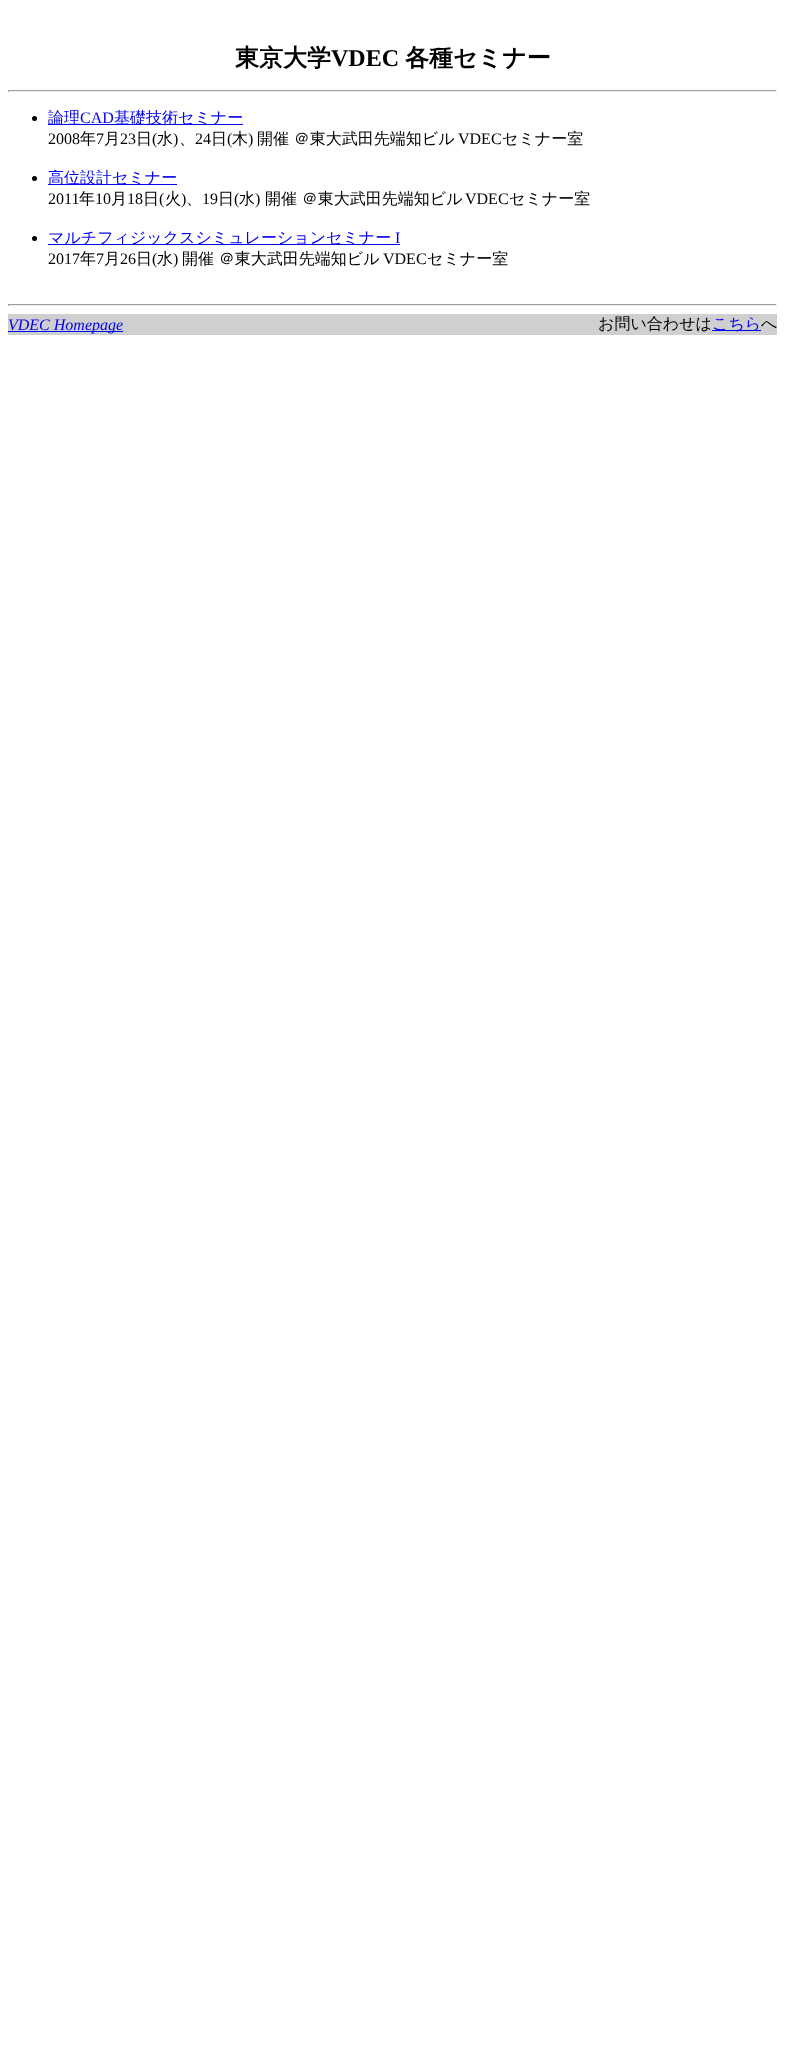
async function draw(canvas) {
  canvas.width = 785;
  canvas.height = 2068;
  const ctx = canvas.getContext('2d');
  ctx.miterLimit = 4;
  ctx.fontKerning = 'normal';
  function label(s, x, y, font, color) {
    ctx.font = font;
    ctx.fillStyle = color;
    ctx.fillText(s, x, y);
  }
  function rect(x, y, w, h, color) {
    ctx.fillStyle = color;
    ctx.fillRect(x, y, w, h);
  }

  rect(0, 0, 785, 2068, '#fff');
  label('東京大学', 235, 66, 'bold 24px WenQuanYi Zen Hei', '#000');
  label('VDEC', 331, 66, 'bold 24px Liberation Serif', '#000');
  label('各種セミナー', 405, 66, 'bold 24px WenQuanYi Zen Hei', '#000');
  rect(8, 90, 769, 1, '#9f9f9f');
  rect(776, 90, 1, 2, '#eee');
  rect(8, 91, 769, 1, '#eee');
  rect(8, 90, 1, 2, '#9f9f9f');
  ctx.fillStyle = '#000';
  ctx.beginPath();
  ctx.arc(34.5, 118.5, 2.5, 0, 2 * Math.PI);
  ctx.fill();
  rect(48, 124, 195, 1, '#00e');
  label('論理', 48, 123, '500 16px WenQuanYi Zen Hei', '#00e');
  label('CAD', 80, 123, '16px Liberation Serif', '#00e');
  label('基礎技術セミナー', 114, 123, '500 16px WenQuanYi Zen Hei', '#00e');
  label('2008', 48, 144, '16px Liberation Serif', '#000');
  label('年', 80, 144, '500 16px WenQuanYi Zen Hei', '#000');
  label('7', 96, 144, '16px Liberation Serif', '#000');
  label('月', 104, 144, '500 16px WenQuanYi Zen Hei', '#000');
  label('23', 120, 144, '16px Liberation Serif', '#000');
  label('日', 136, 144, '500 16px WenQuanYi Zen Hei', '#000');
  label('(', 152, 144, '16px Liberation Serif', '#000');
  label('水', 157, 144, '500 16px WenQuanYi Zen Hei', '#000');
  label(')', 173, 144, '16px Liberation Serif', '#000');
  label('、', 179, 144, '500 16px WenQuanYi Zen Hei', '#000');
  label('24', 195, 144, '16px Liberation Serif', '#000');
  label('日', 211, 144, '500 16px WenQuanYi Zen Hei', '#000');
  label('(', 227, 144, '16px Liberation Serif', '#000');
  label('木', 232, 144, '500 16px WenQuanYi Zen Hei', '#000');
  label(')', 248, 144, '16px Liberation Serif', '#000');
  label('開催 ＠東大武田先端知ビル', 257, 144, '500 16px WenQuanYi Zen Hei', '#000');
  label('VDEC', 458, 144, '16px Liberation Serif', '#000');
  label('セミナー室', 502, 144, '500 16px WenQuanYi Zen Hei', '#000');
  ctx.beginPath();
  ctx.arc(34.5, 178.5, 2.5, 0, 2 * Math.PI);
  ctx.fill();
  rect(48, 184, 129, 1, '#00e');
  label('高位設計セミナー', 48, 183, '500 16px WenQuanYi Zen Hei', '#00e');
  label('2011', 48, 204, '16px Liberation Serif', '#000');
  label('年', 79, 204, '500 16px WenQuanYi Zen Hei', '#000');
  label('10', 95, 204, '16px Liberation Serif', '#000');
  label('月', 111, 204, '500 16px WenQuanYi Zen Hei', '#000');
  label('18', 127, 204, '16px Liberation Serif', '#000');
  label('日', 143, 204, '500 16px WenQuanYi Zen Hei', '#000');
  label('(', 159, 204, '16px Liberation Serif', '#000');
  label('火', 165, 204, '500 16px WenQuanYi Zen Hei', '#000');
  label(')', 181, 204, '16px Liberation Serif', '#000');
  label('、', 186, 204, '500 16px WenQuanYi Zen Hei', '#000');
  label('19', 202, 204, '16px Liberation Serif', '#000');
  label('日', 218, 204, '500 16px WenQuanYi Zen Hei', '#000');
  label('(', 234, 204, '16px Liberation Serif', '#000');
  label('水', 239, 204, '500 16px WenQuanYi Zen Hei', '#000');
  label(')', 255, 204, '16px Liberation Serif', '#000');
  label('開催 ＠東大武田先端知ビル', 265, 204, '500 16px WenQuanYi Zen Hei', '#000');
  label('VDEC', 465, 204, '16px Liberation Serif', '#000');
  label('セミナー室', 509, 204, '500 16px WenQuanYi Zen Hei', '#000');
  ctx.beginPath();
  ctx.arc(34.5, 238.5, 2.5, 0, 2 * Math.PI);
  ctx.fill();
  rect(48, 244, 352, 1, '#00e');
  label('マルチフィジックスシミュレーションセミナー', 48, 243, '500 16px WenQuanYi Zen Hei', '#00e');
  label('I', 395, 243, '16px Liberation Serif', '#00e');
  label('2017', 48, 264, '16px Liberation Serif', '#000');
  label('年', 80, 264, '500 16px WenQuanYi Zen Hei', '#000');
  label('7', 96, 264, '16px Liberation Serif', '#000');
  label('月', 104, 264, '500 16px WenQuanYi Zen Hei', '#000');
  label('26', 120, 264, '16px Liberation Serif', '#000');
  label('日', 136, 264, '500 16px WenQuanYi Zen Hei', '#000');
  label('(', 152, 264, '16px Liberation Serif', '#000');
  label('水', 157, 264, '500 16px WenQuanYi Zen Hei', '#000');
  label(')', 173, 264, '16px Liberation Serif', '#000');
  label('開催 ＠東大武田先端知ビル', 182, 264, '500 16px WenQuanYi Zen Hei', '#000');
  label('VDEC', 383, 264, '16px Liberation Serif', '#000');
  label('セミナー室', 427, 264, '500 16px WenQuanYi Zen Hei', '#000');
  rect(8, 304, 769, 1, '#9f9f9f');
  rect(776, 304, 1, 2, '#eee');
  rect(8, 305, 769, 1, '#eee');
  rect(8, 304, 1, 2, '#9f9f9f');
  rect(8, 314, 769, 21, '#cfcfcf');
  rect(8, 331, 115, 1, '#00e');
  label('VDEC Homepage', 8, 330, 'italic 16px Liberation Serif', '#00e');
  label('お問い合わせは', 598, 329, '500 16px WenQuanYi Zen Hei', '#000');
  rect(712, 330, 49, 1, '#00e');
  label('こちら', 712, 329, '500 16px WenQuanYi Zen Hei', '#00e');
  label('へ', 761, 329, '500 16px WenQuanYi Zen Hei', '#000');
}

draw(document.querySelector('canvas'));
